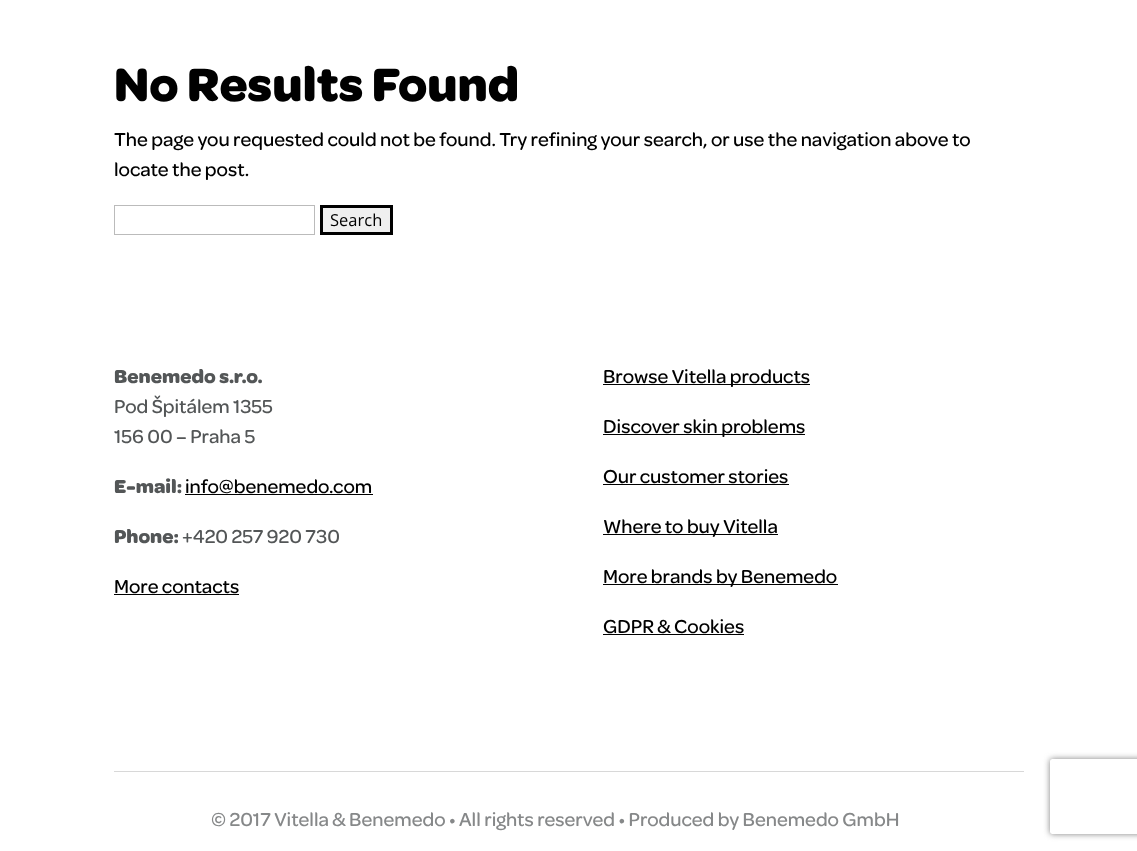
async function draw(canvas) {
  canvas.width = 1137;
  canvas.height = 851;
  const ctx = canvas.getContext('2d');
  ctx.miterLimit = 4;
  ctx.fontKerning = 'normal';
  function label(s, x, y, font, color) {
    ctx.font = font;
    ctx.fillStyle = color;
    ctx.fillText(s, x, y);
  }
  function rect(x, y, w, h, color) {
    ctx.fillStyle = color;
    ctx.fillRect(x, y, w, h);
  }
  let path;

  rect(0, 0, 1137, 851, '#fff');
  label('No Results Found', 114, 101, 'bold 50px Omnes', '#000');
  label('The page you requested could not be found. Try refining your search, or use the navigation above to', 114, 146, '500 20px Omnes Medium', '#000');
  label('locate the post.', 114, 176, '500 20px Omnes Medium', '#000');
  ctx.strokeStyle = '#bbb';
  ctx.strokeRect(114.5, 205.5, 200, 29);
  ctx.fillStyle = '#efefef';
  ctx.beginPath();
  ctx.rect(321.5, 206.5, 70, 27);
  ctx.fill();
  ctx.strokeStyle = '#000';
  ctx.lineWidth = 3;
  ctx.stroke();
  label('Search', 330, 226, '16.5px Open Sans', '#000');
  rect(114, 771, 910, 1, '#d8d8d8');
  label('Benemedo s.r.o.', 114, 383, 'bold 20px Omnes', '#535657');
  label('Pod Špitálem 1355', 114, 413, '500 20px Omnes Medium', '#535657');
  label('156 00 – Praha 5', 114, 443, '500 20px Omnes Medium', '#535657');
  label('E-mail:', 114, 493, 'bold 20px Omnes', '#535657');
  label('info@benemedo.com', 185, 493, '500 20px Omnes Medium', '#000');
  rect(185, 494, 188, 1, '#000');
  label('Phone:', 114, 543, 'bold 20px Omnes', '#535657');
  label('+420 257 920 730', 182, 543, '500 20px Omnes Medium', '#535657');
  label('More contacts', 114, 593, '500 20px Omnes Medium', '#000');
  rect(114, 594, 125, 1, '#000');
  rect(603, 384, 207, 1, '#000');
  label('Browse Vitella products', 603, 383, '500 20px Omnes Medium', '#000');
  rect(603, 434, 202, 1, '#000');
  label('Discover skin problems', 603, 433, '500 20px Omnes Medium', '#000');
  label('Our customer stories', 603, 483, '500 20px Omnes Medium', '#000');
  rect(603, 484, 186, 1, '#000');
  rect(603, 534, 175, 1, '#000');
  label('Where to buy Vitella', 603, 533, '500 20px Omnes Medium', '#000');
  rect(603, 584, 235, 1, '#000');
  label('More brands by Benemedo', 603, 583, '500 20px Omnes Medium', '#000');
  label('GDPR & Cookies', 603, 633, '500 20px Omnes Medium', '#000');
  rect(603, 634, 141, 1, '#000');
  label('© 2017 Vitella & Benemedo • All rights reserved • Produced by Benemedo GmbH', 211, 826, '500 20px Omnes Medium', '#868889');
  ctx.save();
  path = new Path2D('M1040 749H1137V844H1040ZM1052.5 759H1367.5C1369 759 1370 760 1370 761.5V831.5C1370 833 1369 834 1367.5 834H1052.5C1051 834 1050 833 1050 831.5V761.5C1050 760 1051 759 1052.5 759Z');
  ctx.clip(path, 'evenodd');
  ctx.fillStyle = '#808080';
  ctx.filter = 'blur(3px)';
  ctx.beginPath();
  ctx.roundRect(1050, 759, 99, 75, 2.5);
  ctx.fill();
  ctx.filter = 'none';
  ctx.restore();
}

draw(document.querySelector('canvas'));
